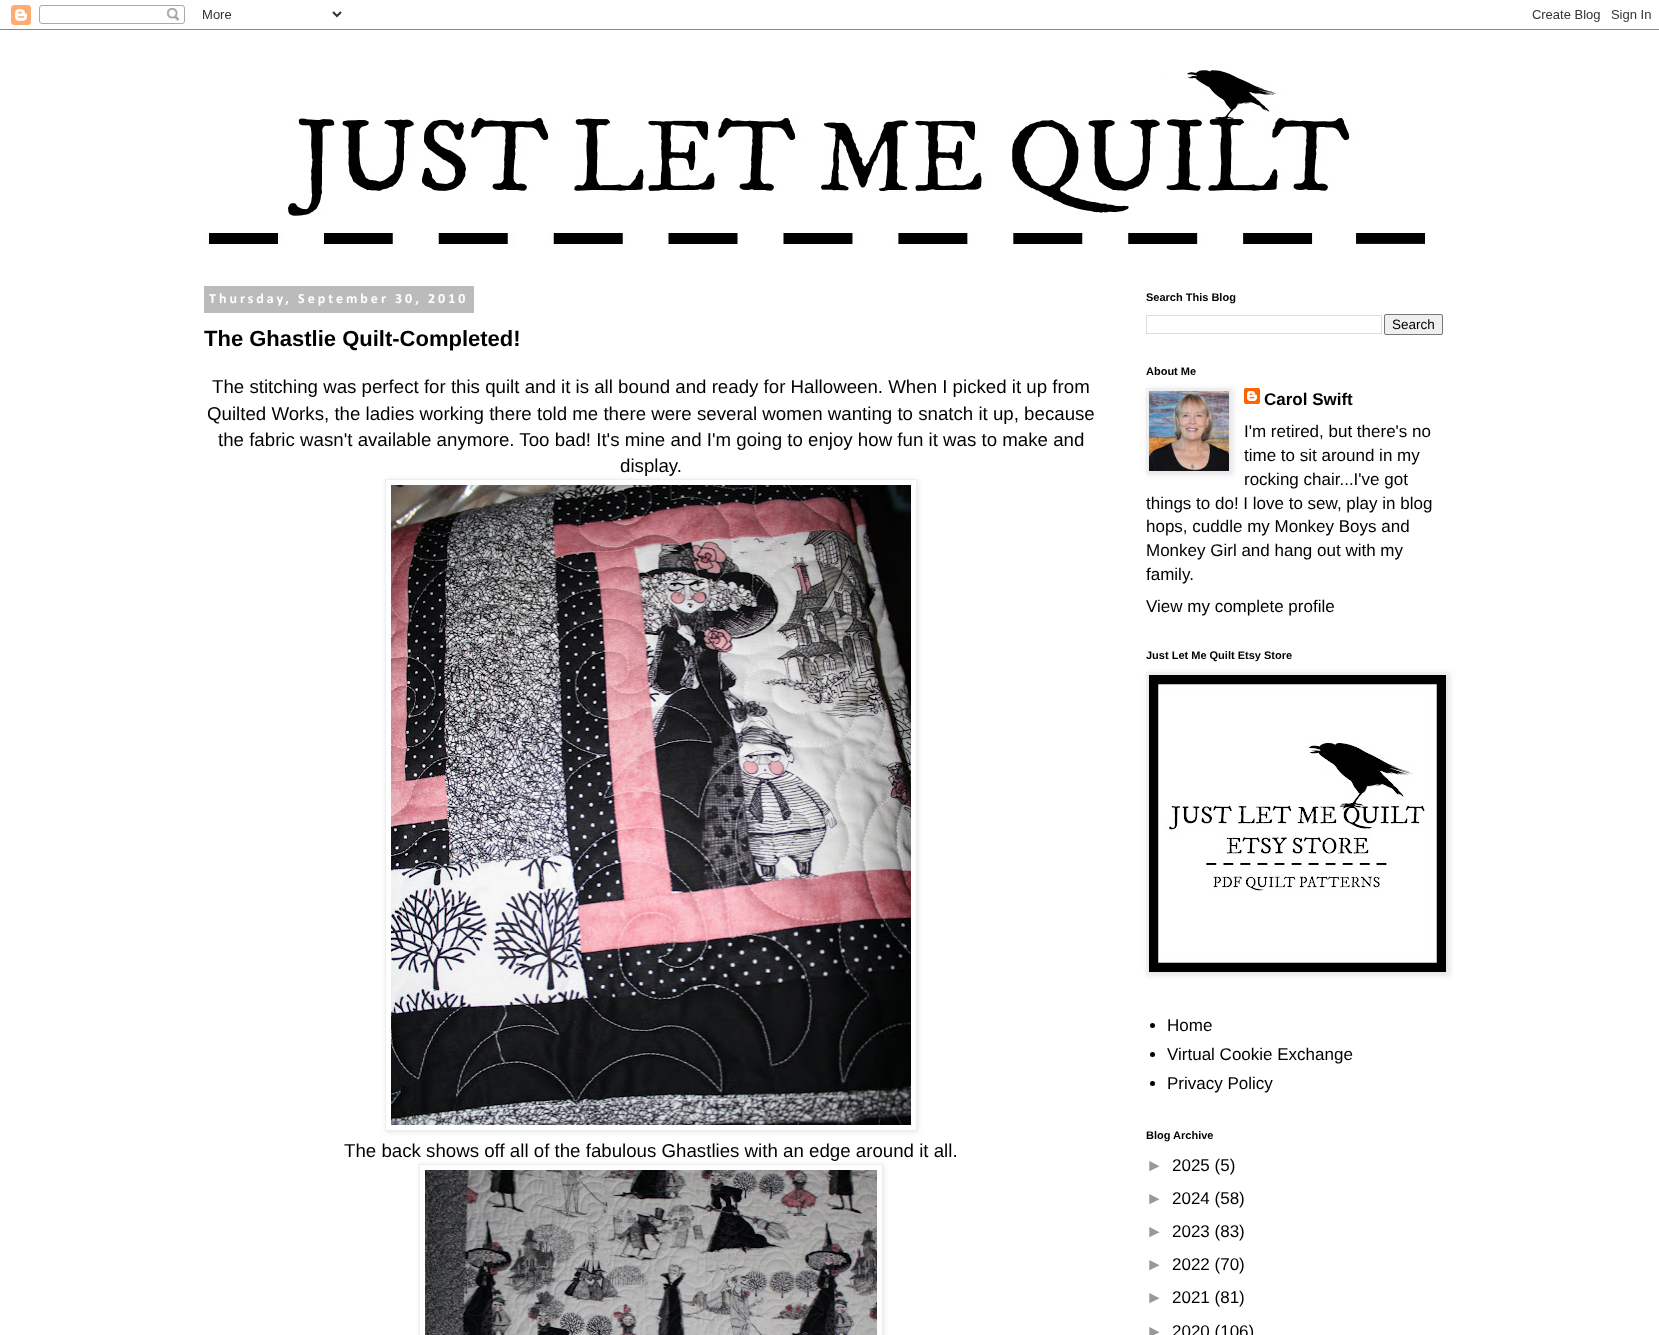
async function draw(canvas) {
  canvas.width = 1659;
  canvas.height = 1335;
  const ctx = canvas.getContext('2d');
  ctx.miterLimit = 4;
  ctx.fontKerning = 'normal';
  function label(s, x, y, font, color) {
    ctx.font = font;
    ctx.fillStyle = color;
    ctx.fillText(s, x, y);
  }
  function rect(x, y, w, h, color) {
    ctx.fillStyle = color;
    ctx.fillRect(x, y, w, h);
  }
  async function image(src, x, y, w, h) {
    const img = new Image();
    img.src = src;
    await img.decode();
    ctx.drawImage(img, x, y, w, h);
  }
  let path;

  rect(0, 0, 1659, 1335, '#fff');
  await image('assets/img1.png', 0, 5, 1659, 25);
  await image('assets/img2.png', 205, 66, 1221, 181);
  rect(204, 286, 270, 27, '#bbb');
  ctx.letterSpacing = '3px';
  label('Thursday, September 30, 2010', 209, 303, 'bold 14px Calibri', '#fff');
  ctx.letterSpacing = '0px';
  label('The Ghastlie Quilt-Completed!', 204, 346, 'bold 22px Liberation Sans', '#000');
  label('The stitching was perfect for this quilt and it is all bound and ready for Halloween. When I picked it up from', 212, 393, '18.7px Liberation Sans', '#000');
  label('Quilted Works, the ladies working there told me there were several women wanting to snatch it up, because', 207, 420, '18.7px Liberation Sans', '#000');
  label('the fabric wasn\'t available anymore. Too bad! It\'s mine and I\'m going to enjoy how fun it was to make and', 218, 446, '18.7px Liberation Sans', '#000');
  label('display.', 620, 472, '18.7px Liberation Sans', '#000');
  ctx.save();
  path = new Path2D('M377 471H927V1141H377ZM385 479H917V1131H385Z');
  ctx.clip(path, 'evenodd');
  ctx.fillStyle = '#0000001a';
  ctx.filter = 'blur(2.5px)';
  ctx.beginPath();
  ctx.rect(386, 480, 532, 652);
  ctx.fill();
  ctx.filter = 'none';
  ctx.restore();
  ctx.strokeStyle = '#eee';
  ctx.strokeRect(385.5, 479.5, 531, 651);
  await image('assets/img3.png', 391, 485, 520, 640);
  label('The back shows off all of the fabulous Ghastlies with an edge around it all.', 344, 1157, '18.7px Liberation Sans', '#000');
  ctx.save();
  path = new Path2D('M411 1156H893V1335H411ZM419 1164H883V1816H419Z');
  ctx.clip(path, 'evenodd');
  ctx.fillStyle = '#0000001a';
  ctx.filter = 'blur(2.5px)';
  ctx.beginPath();
  ctx.rect(420, 1165, 464, 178);
  ctx.fill();
  ctx.filter = 'none';
  ctx.restore();
  ctx.strokeRect(419.5, 1164.5, 463, 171);
  await image('assets/img4.png', 425, 1170, 452, 165);
  label('Search This Blog', 1146, 301, 'bold 11px Liberation Sans', '#000');
  ctx.strokeStyle = '#ddd';
  ctx.strokeRect(1146.5, 315.5, 235, 18);
  ctx.fillStyle = '#efefef';
  ctx.beginPath();
  ctx.roundRect(1384.5, 314.5, 58, 20, 1.5);
  ctx.fill();
  ctx.strokeStyle = '#767676';
  ctx.stroke();
  label('Search', 1392, 329, '13.5px Liberation Sans', '#000');
  label('About Me', 1146, 375, 'bold 11px Liberation Sans', '#000');
  ctx.fillStyle = '#0000001a';
  ctx.filter = 'blur(2.5px)';
  ctx.beginPath();
  ctx.rect(1147, 389, 86, 86);
  ctx.fill();
  ctx.filter = 'none';
  ctx.strokeStyle = '#eee';
  ctx.strokeRect(1146.5, 388.5, 85, 85);
  await image('assets/img5.png', 1149, 391, 80, 80);
  await image('assets/img6.png', 1244, 388, 16, 16);
  label('Carol Swift', 1264, 405, 'bold 17px Liberation Sans', '#000');
  label('I\'m retired, but there\'s no', 1244, 437, '17px Liberation Sans', '#000');
  label('time to sit around in my', 1244, 461, '17px Liberation Sans', '#000');
  label('rocking chair...I\'ve got', 1244, 485, '17px Liberation Sans', '#000');
  label('things to do! I love to sew, play in blog', 1146, 509, '17px Liberation Sans', '#000');
  label('hops, cuddle my Monkey Boys and', 1146, 532, '17px Liberation Sans', '#000');
  label('Monkey Girl and hang out with my', 1146, 556, '17px Liberation Sans', '#000');
  label('family.', 1146, 580, '17px Liberation Sans', '#000');
  label('View my complete profile', 1146, 612, '17px Liberation Sans', '#000');
  label('Just Let Me Quilt Etsy Store', 1146, 659, 'bold 11px Liberation Sans', '#000');
  ctx.fillStyle = '#0000001a';
  ctx.filter = 'blur(2.5px)';
  ctx.beginPath();
  ctx.rect(1147, 673, 303, 303);
  ctx.fill();
  ctx.filter = 'none';
  ctx.strokeRect(1146.5, 672.5, 302, 302);
  await image('assets/img7.png', 1149, 675, 297, 297);
  ctx.fillStyle = '#000';
  ctx.beginPath();
  ctx.arc(1152.5, 1025.5, 2.5, 0, 2 * Math.PI);
  ctx.fill();
  label('Home', 1167, 1031, '17px Liberation Sans', '#000');
  ctx.beginPath();
  ctx.arc(1152.5, 1054.5, 2.5, 0, 2 * Math.PI);
  ctx.fill();
  label('Virtual Cookie Exchange', 1167, 1060, '17px Liberation Sans', '#000');
  ctx.beginPath();
  ctx.arc(1152.5, 1083.5, 2.5, 0, 2 * Math.PI);
  ctx.fill();
  label('Privacy Policy', 1167, 1089, '17px Liberation Sans', '#000');
  label('Blog Archive', 1146, 1139, 'bold 11px Liberation Sans', '#000');
  label('►', 1146, 1171, '17px Liberation Sans', '#999');
  label('2025 (5)', 1172, 1171, '17px Liberation Sans', '#000');
  label('►', 1146, 1204, '17px Liberation Sans', '#999');
  label('2024 (58)', 1172, 1204, '17px Liberation Sans', '#000');
  label('►', 1146, 1237, '17px Liberation Sans', '#999');
  label('2023 (83)', 1172, 1237, '17px Liberation Sans', '#000');
  label('►', 1146, 1270, '17px Liberation Sans', '#999');
  label('2022 (70)', 1172, 1270, '17px Liberation Sans', '#000');
  label('►', 1146, 1303, '17px Liberation Sans', '#999');
  label('2021 (81)', 1172, 1303, '17px Liberation Sans', '#000');
  label('►', 1146, 1337, '17px Liberation Sans', '#999');
  label('2020 (106)', 1172, 1337, '17px Liberation Sans', '#000');
}

draw(document.querySelector('canvas'));
